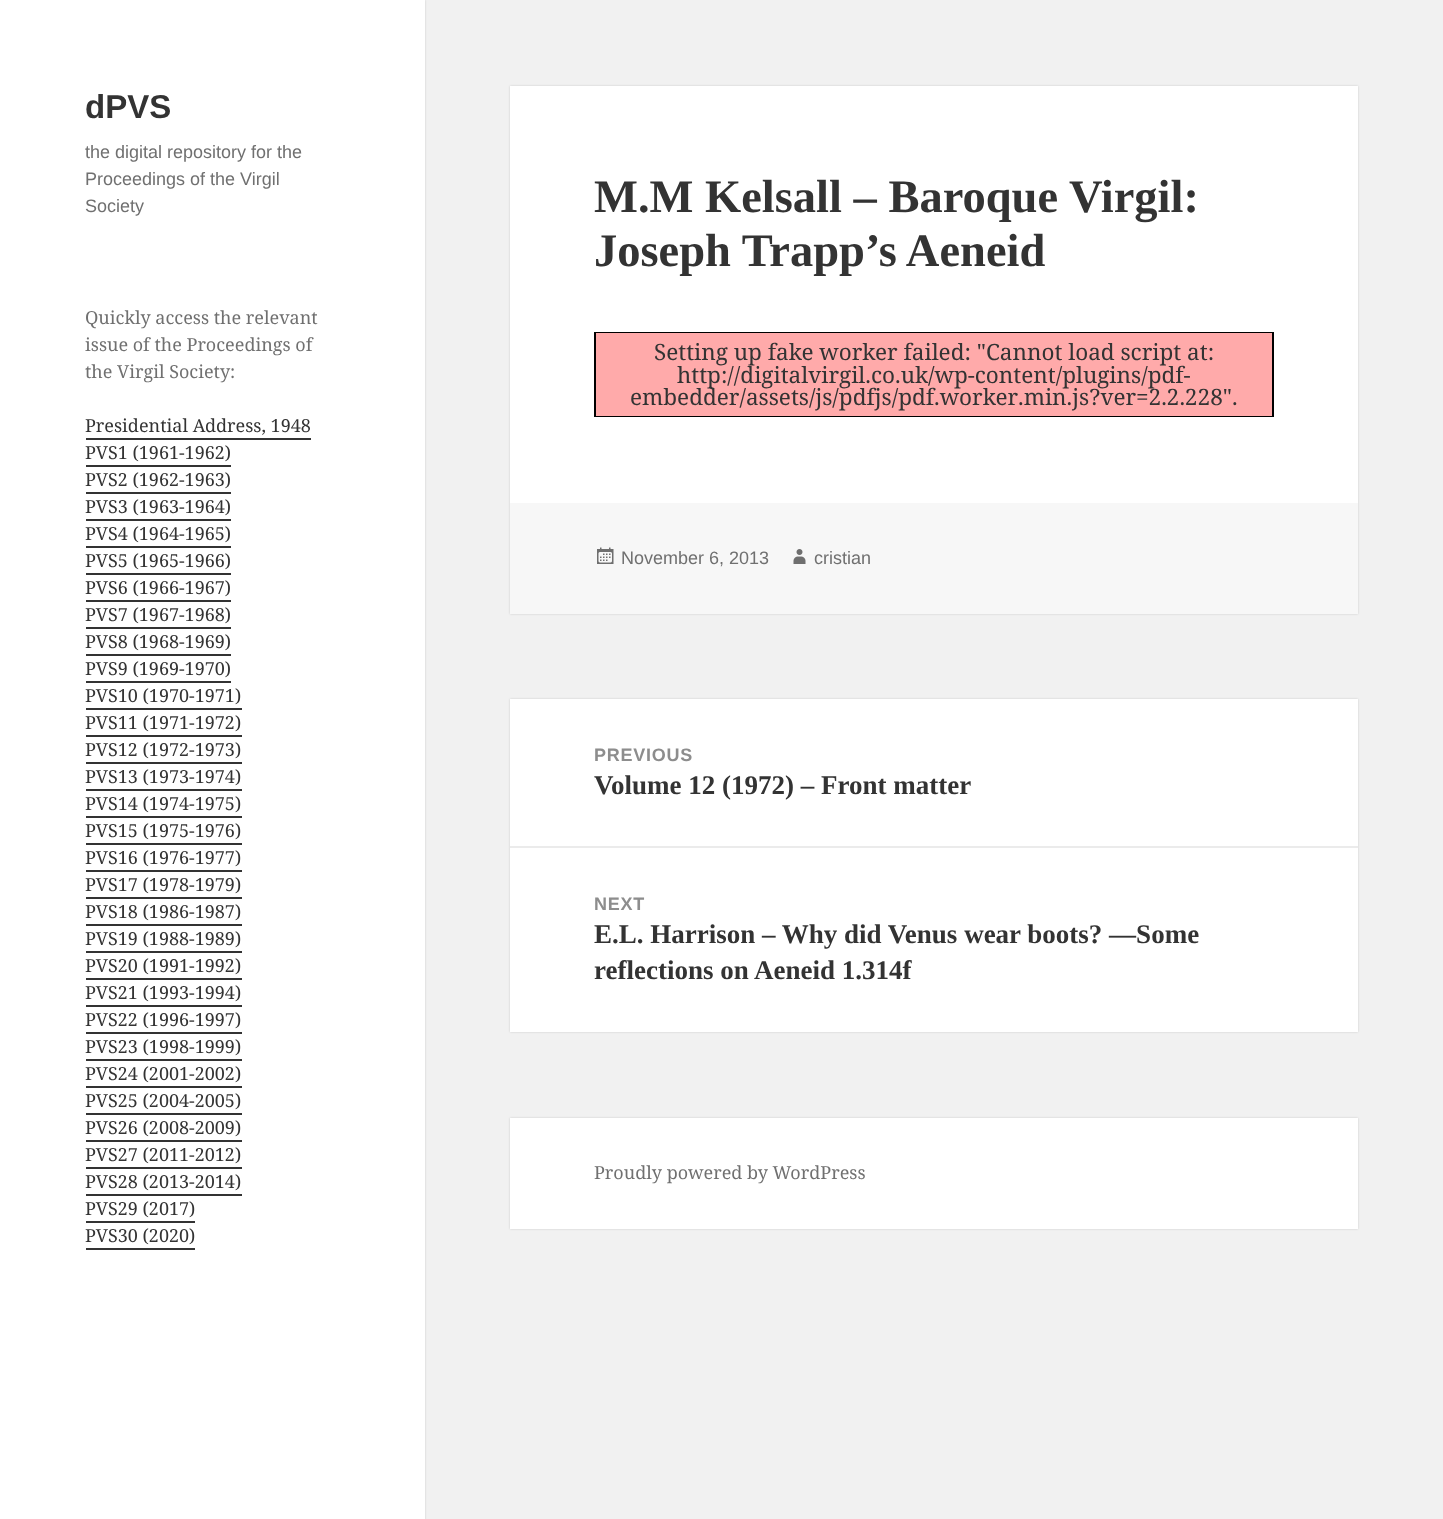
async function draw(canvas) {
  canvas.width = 1443;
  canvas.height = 1519;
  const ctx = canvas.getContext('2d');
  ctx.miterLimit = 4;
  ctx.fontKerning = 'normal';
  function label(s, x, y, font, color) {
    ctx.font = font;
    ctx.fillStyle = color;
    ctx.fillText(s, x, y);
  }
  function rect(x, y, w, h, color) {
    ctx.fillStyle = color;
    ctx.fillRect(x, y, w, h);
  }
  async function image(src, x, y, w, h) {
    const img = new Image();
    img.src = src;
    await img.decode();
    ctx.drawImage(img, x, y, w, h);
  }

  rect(0, 0, 1443, 1519, '#f1f1f1');
  ctx.fillStyle = '#00000026';
  ctx.filter = 'blur(1px)';
  ctx.beginPath();
  ctx.rect(0, 0, 425, 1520);
  ctx.fill();
  ctx.filter = 'none';
  rect(0, 0, 425, 1519, '#fff');
  label('dPVS', 85, 118, 'bold 33px Liberation Sans', '#333');
  label('the digital repository for the', 85, 158, '18px Liberation Sans', '#707070');
  label('Proceedings of the Virgil', 85, 185, '18px Liberation Sans', '#707070');
  label('Society', 85, 212, '18px Liberation Sans', '#707070');
  label('Quickly access the relevant', 85, 324, '18px Noto Serif', '#707070');
  label('issue of the Proceedings of', 85, 351, '18px Noto Serif', '#707070');
  label('the Virgil Society:', 85, 378, '18px Noto Serif', '#707070');
  label('Presidential Address, 1948', 85, 432, '18px Noto Serif', '#333');
  rect(86, 438, 225, 2, '#333');
  label('PVS1 (1961-1962)', 85, 459, '18px Noto Serif', '#333');
  rect(86, 465, 145, 2, '#333');
  label('PVS2 (1962-1963)', 85, 486, '18px Noto Serif', '#333');
  rect(86, 492, 145, 2, '#333');
  label('PVS3 (1963-1964)', 85, 513, '18px Noto Serif', '#333');
  rect(86, 519, 145, 2, '#333');
  label('PVS4 (1964-1965)', 85, 540, '18px Noto Serif', '#333');
  rect(86, 546, 145, 2, '#333');
  label('PVS5 (1965-1966)', 85, 567, '18px Noto Serif', '#333');
  rect(86, 573, 145, 2, '#333');
  label('PVS6 (1966-1967)', 85, 594, '18px Noto Serif', '#333');
  rect(86, 600, 145, 2, '#333');
  label('PVS7 (1967-1968)', 85, 621, '18px Noto Serif', '#333');
  rect(86, 627, 145, 2, '#333');
  label('PVS8 (1968-1969)', 85, 648, '18px Noto Serif', '#333');
  rect(86, 654, 145, 2, '#333');
  label('PVS9 (1969-1970)', 85, 675, '18px Noto Serif', '#333');
  rect(86, 681, 145, 2, '#333');
  label('PVS10 (1970-1971)', 85, 702, '18px Noto Serif', '#333');
  rect(86, 708, 156, 2, '#333');
  label('PVS11 (1971-1972)', 85, 729, '18px Noto Serif', '#333');
  rect(86, 735, 156, 2, '#333');
  label('PVS12 (1972-1973)', 85, 756, '18px Noto Serif', '#333');
  rect(86, 762, 156, 2, '#333');
  label('PVS13 (1973-1974)', 85, 783, '18px Noto Serif', '#333');
  rect(86, 789, 156, 2, '#333');
  label('PVS14 (1974-1975)', 85, 810, '18px Noto Serif', '#333');
  rect(86, 816, 156, 2, '#333');
  label('PVS15 (1975-1976)', 85, 837, '18px Noto Serif', '#333');
  rect(86, 843, 156, 2, '#333');
  label('PVS16 (1976-1977)', 85, 864, '18px Noto Serif', '#333');
  rect(86, 870, 156, 2, '#333');
  label('PVS17 (1978-1979)', 85, 891, '18px Noto Serif', '#333');
  rect(86, 897, 156, 2, '#333');
  label('PVS18 (1986-1987)', 85, 918, '18px Noto Serif', '#333');
  rect(86, 924, 156, 2, '#333');
  label('PVS19 (1988-1989)', 85, 945, '18px Noto Serif', '#333');
  rect(86, 951, 156, 2, '#333');
  label('PVS20 (1991-1992)', 85, 972, '18px Noto Serif', '#333');
  rect(86, 978, 156, 2, '#333');
  label('PVS21 (1993-1994)', 85, 999, '18px Noto Serif', '#333');
  rect(86, 1005, 156, 2, '#333');
  label('PVS22 (1996-1997)', 85, 1026, '18px Noto Serif', '#333');
  rect(86, 1032, 156, 2, '#333');
  label('PVS23 (1998-1999)', 85, 1053, '18px Noto Serif', '#333');
  rect(86, 1059, 156, 2, '#333');
  label('PVS24 (2001-2002)', 85, 1080, '18px Noto Serif', '#333');
  rect(86, 1086, 156, 2, '#333');
  label('PVS25 (2004-2005)', 85, 1107, '18px Noto Serif', '#333');
  rect(86, 1113, 156, 2, '#333');
  label('PVS26 (2008-2009)', 85, 1134, '18px Noto Serif', '#333');
  rect(86, 1140, 156, 2, '#333');
  label('PVS27 (2011-2012)', 85, 1161, '18px Noto Serif', '#333');
  rect(86, 1167, 156, 2, '#333');
  label('PVS28 (2013-2014)', 85, 1188, '18px Noto Serif', '#333');
  rect(86, 1194, 156, 2, '#333');
  label('PVS29 (2017)', 85, 1215, '18px Noto Serif', '#333');
  rect(86, 1221, 109, 2, '#333');
  label('PVS30 (2020)', 85, 1242, '18px Noto Serif', '#333');
  rect(86, 1248, 109, 2, '#333');
  ctx.fillStyle = '#00000026';
  ctx.filter = 'blur(1px)';
  ctx.beginPath();
  ctx.rect(510, 86, 848, 528);
  ctx.fill();
  ctx.filter = 'none';
  rect(510, 86, 848, 417, '#fff');
  label('M.M Kelsall – Baroque Virgil:', 594, 212, 'bold 46.5px Liberation Serif', '#333');
  label('Joseph Trapp’s Aeneid', 594, 266, 'bold 46.5px Liberation Serif', '#333');
  ctx.strokeStyle = '#000';
  ctx.lineWidth = 2;
  ctx.strokeRect(595, 333, 678, 83);
  rect(596, 333, 676, 83, '#faa');
  label('Setting up fake worker failed: "Cannot load script at:', 654, 360, '22.5px Noto Serif', '#333');
  label('http://digitalvirgil.co.uk/wp-content/plugins/pdf-', 677, 383, '22.5px Noto Serif', '#333');
  label('embedder/assets/js/pdfjs/pdf.worker.min.js?ver=2.2.228".', 630, 405, '22.5px Noto Serif', '#333');
  rect(510, 503, 848, 111, '#f7f7f7');
  await image('assets/img1.png', 597, 547, 17, 17);
  label('November 6, 2013', 621, 564, '18px Liberation Sans', '#707070');
  await image('assets/img2.png', 793, 549, 13, 15);
  label('cristian', 814, 564, '18px Liberation Sans', '#707070');
  ctx.fillStyle = '#00000026';
  ctx.filter = 'blur(1px)';
  ctx.beginPath();
  ctx.rect(510, 699, 848, 333);
  ctx.fill();
  ctx.filter = 'none';
  rect(510, 699, 848, 333, '#fff');
  ctx.letterSpacing = '0.75px';
  label('PREVIOUS', 594, 761, 'bold 18px Liberation Sans', '#8d8d8d');
  ctx.letterSpacing = '0px';
  label('Volume 12 (1972) – Front matter', 594, 794, 'bold 27px Liberation Serif', '#333');
  rect(510, 846, 848, 2, '#ebebeb');
  ctx.letterSpacing = '0.75px';
  label('NEXT', 594, 910, 'bold 18px Liberation Sans', '#8d8d8d');
  ctx.letterSpacing = '0px';
  label('E.L. Harrison – Why did Venus wear boots? —Some', 594, 943, 'bold 27px Liberation Serif', '#333');
  label('reflections on Aeneid 1.314f', 594, 979, 'bold 27px Liberation Serif', '#333');
  ctx.fillStyle = '#00000026';
  ctx.filter = 'blur(1px)';
  ctx.beginPath();
  ctx.rect(510, 1118, 848, 111);
  ctx.fill();
  ctx.filter = 'none';
  rect(510, 1118, 848, 111, '#fff');
  label('Proudly powered by WordPress', 594, 1179, '18px Noto Serif', '#707070');
}

draw(document.querySelector('canvas'));
